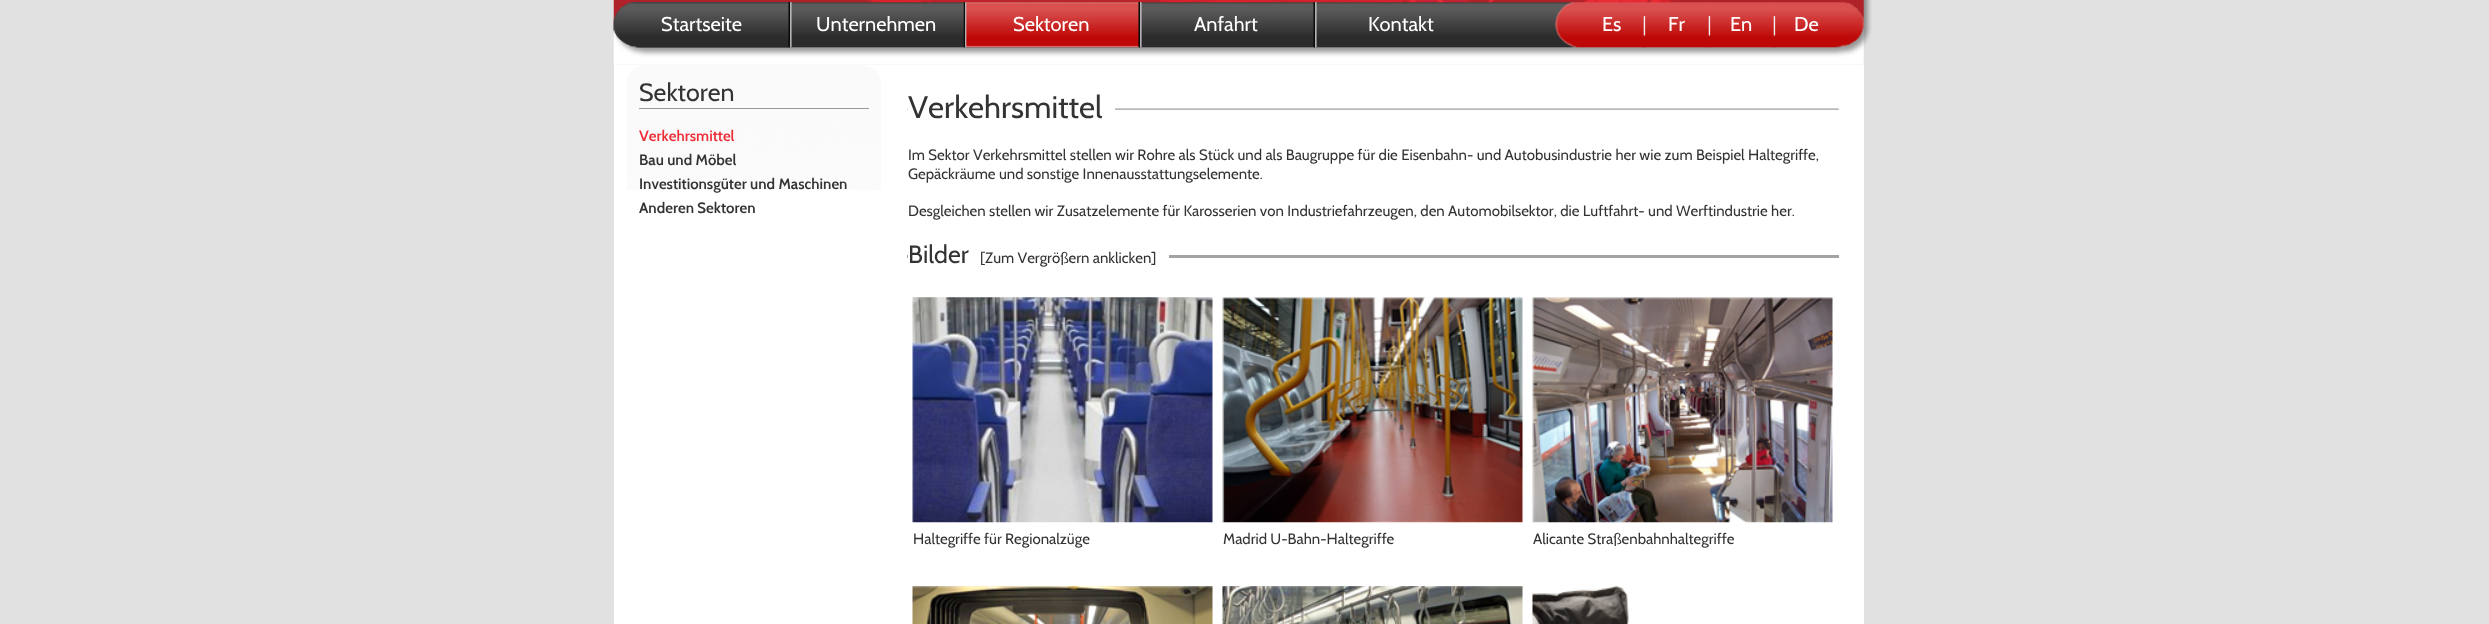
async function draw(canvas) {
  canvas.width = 2489;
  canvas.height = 624;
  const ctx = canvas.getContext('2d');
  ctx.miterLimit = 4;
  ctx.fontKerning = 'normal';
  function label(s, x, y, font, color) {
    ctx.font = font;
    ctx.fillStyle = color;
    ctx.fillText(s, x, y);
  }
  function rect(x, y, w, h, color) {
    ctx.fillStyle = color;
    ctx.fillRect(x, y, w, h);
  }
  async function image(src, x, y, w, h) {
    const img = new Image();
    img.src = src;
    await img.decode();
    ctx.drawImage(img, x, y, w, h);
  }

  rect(0, 0, 2489, 624, '#e1e1e1');
  await image('assets/img1.png', 613, 0, 1259, 65);
  await image('assets/img2.png', 613, 2, 176, 46);
  await image('assets/img3.png', 613, 2, 176, 46);
  label('Startseite', 661, 31, '20px Cabin', '#fff');
  await image('assets/img4.png', 788, 2, 4, 46);
  await image('assets/img5.png', 788, 2, 4, 46);
  label('Unternehmen', 816, 31, '20px Cabin', '#fff');
  await image('assets/img6.png', 963, 2, 176, 46);
  label('Sektoren', 1013, 31, '20px Cabin', '#fff');
  await image('assets/img7.png', 1138, 2, 4, 46);
  await image('assets/img8.png', 1138, 2, 4, 46);
  label('Anfahrt', 1194, 31, '20px Cabin', '#fff');
  await image('assets/img9.png', 1313, 2, 4, 46);
  await image('assets/img10.png', 1313, 2, 4, 46);
  label('Kontakt', 1368, 31, '20px Cabin', '#fff');
  label('Es', 1602, 31, '20px Cabin', '#fff');
  await image('assets/img11.png', 1643, 2, 3, 46);
  label('Fr', 1668, 31, '20px Cabin', '#fff');
  await image('assets/img12.png', 1708, 2, 3, 46);
  label('En', 1730, 31, '20px Cabin', '#fff');
  await image('assets/img12.png', 1773, 2, 3, 46);
  label('De', 1794, 31, '20px Cabin', '#fff');
  rect(614, 65, 1250, 559, '#fff');
  await image('assets/img13.png', 627, 65, 254, 125);
  rect(639, 108, 230, 1, '#999');
  label('Sektoren', 639, 101, '25px Cabin', '#333');
  label('Verkehrsmittel', 639, 141, '600 15px Cabin', '#ec2e38');
  label('Bau und Möbel', 639, 165, '600 15px Cabin', '#333');
  label('Investitionsgüter und Maschinen', 639, 189, '600 15px Cabin', '#333');
  label('Anderen Sektoren', 639, 213, '600 15px Cabin', '#333');
  await image('assets/img14.png', 907, 108, 932, 2);
  rect(908, 108, 207, 2, '#fff');
  label('Verkehrsmittel', 908, 118, '31.25px Cabin', '#333');
  label('Im Sektor Verkehrsmittel stellen wir Rohre als Stück und als Baugruppe für die Eisenbahn- und Autobusindustrie her wie zum Beispiel Haltegriffe,', 908, 160, '15px Cabin', '#333');
  label('Gepäckräume und sonstige Innenausstattungselemente.', 908, 179, '15px Cabin', '#333');
  label('Desgleichen stellen wir Zusatzelemente für Karosserien von Industriefahrzeugen, den Automobilsektor, die Luftfahrt- und Werftindustrie her.', 908, 216, '15px Cabin', '#333');
  rect(907, 255, 932, 3, '#a3a3a3');
  rect(908, 255, 261, 3, '#fff');
  label('Bilder', 908, 263, '25px Cabin', '#333');
  label('[Zum Vergrößern anklicken]', 980, 263, '15px Cabin', '#333');
  await image('assets/img15.png', 912, 297, 301, 226);
  label('Haltegriffe für Regionalzüge', 913, 544, '15px Cabin', '#333');
  await image('assets/img16.png', 1222, 297, 301, 226);
  label('Madrid U-Bahn-Haltegriffe', 1223, 544, '15px Cabin', '#333');
  await image('assets/img17.png', 1532, 297, 301, 226);
  label('Alicante Straßenbahnhaltegriffe', 1533, 544, '15px Cabin', '#333');
  await image('assets/img18.png', 912, 586, 301, 38);
  await image('assets/img19.png', 1222, 586, 301, 38);
  await image('assets/img20.png', 1532, 586, 97, 38);
}

draw(document.querySelector('canvas'));
